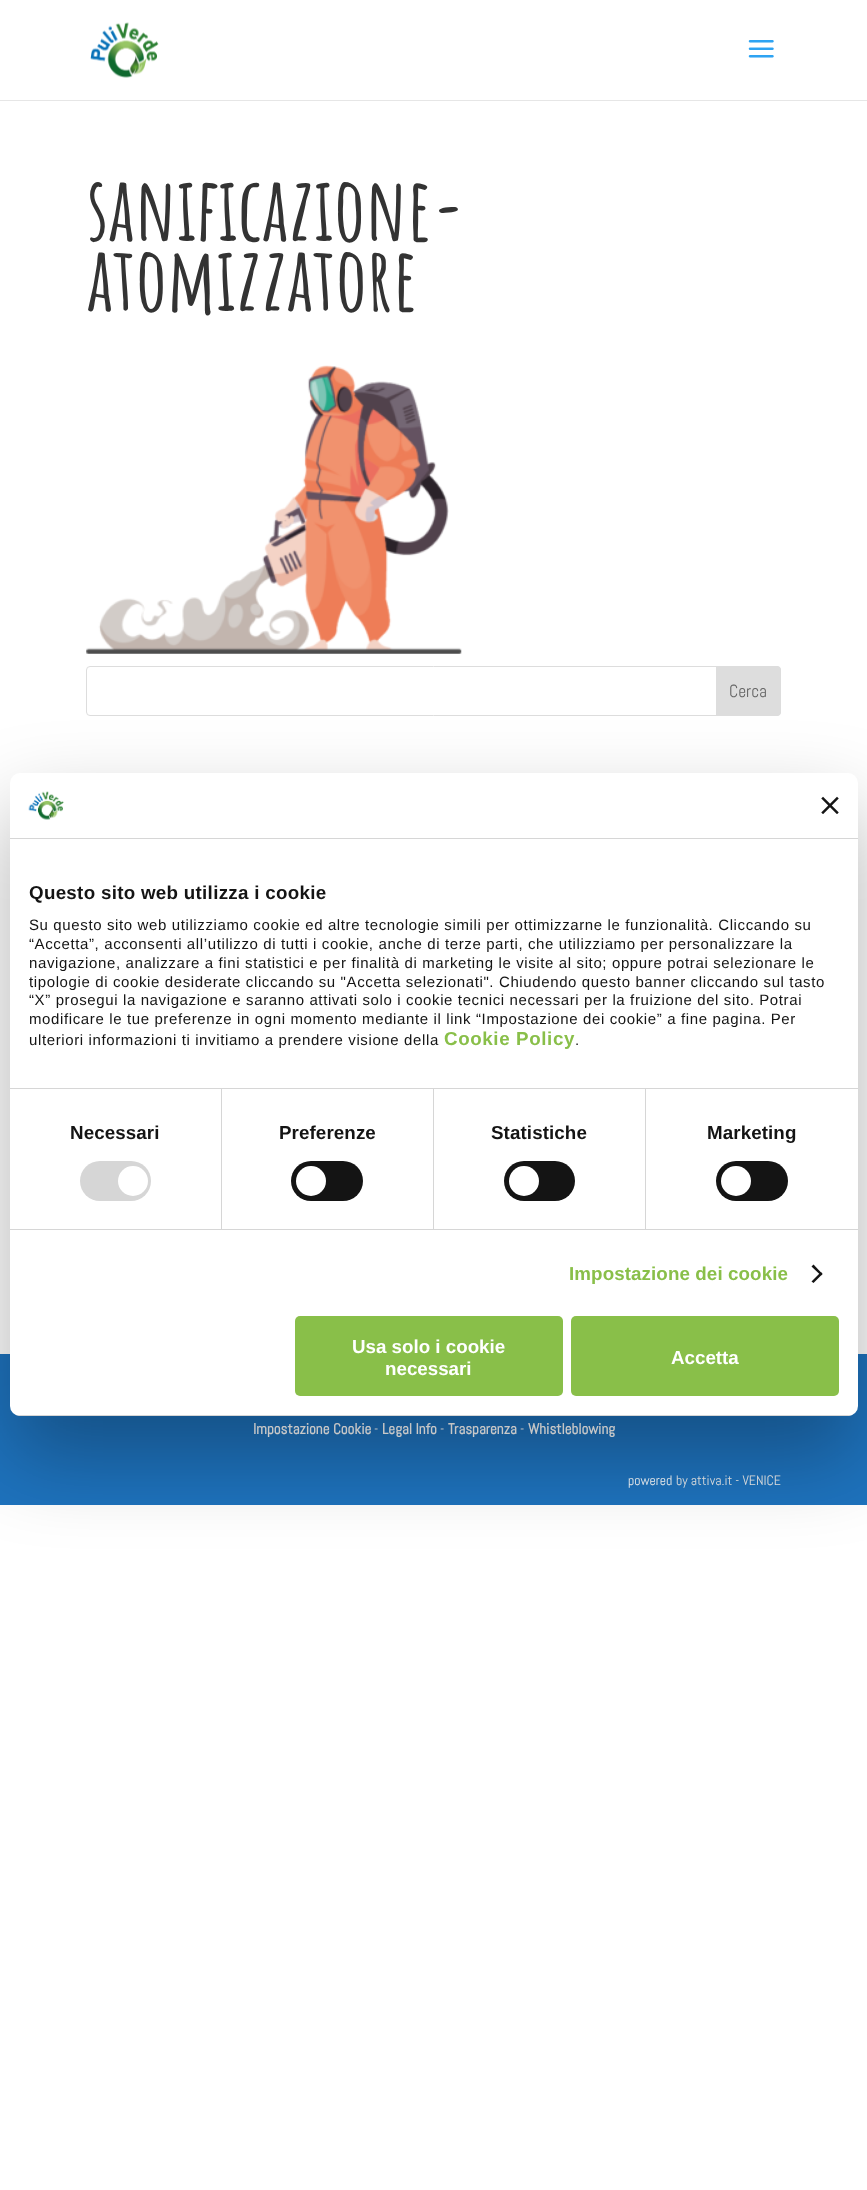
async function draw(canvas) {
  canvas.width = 867;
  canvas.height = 2190;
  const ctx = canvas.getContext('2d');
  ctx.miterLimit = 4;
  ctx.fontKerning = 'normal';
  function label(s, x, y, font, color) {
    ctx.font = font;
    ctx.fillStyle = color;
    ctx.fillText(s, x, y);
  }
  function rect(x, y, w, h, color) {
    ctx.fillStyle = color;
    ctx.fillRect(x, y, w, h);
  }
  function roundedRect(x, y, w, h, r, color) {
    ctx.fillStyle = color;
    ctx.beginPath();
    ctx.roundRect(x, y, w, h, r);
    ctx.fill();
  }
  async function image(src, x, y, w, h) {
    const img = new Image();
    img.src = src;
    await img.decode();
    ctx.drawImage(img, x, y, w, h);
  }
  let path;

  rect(0, 0, 867, 2190, '#fff');
  ctx.fillStyle = '#e6e6e6';
  path = new Path2D('M0 100V101H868V1V100Z');
  ctx.fill(path);
  await image('assets/img1.png', 90, 22, 69, 56);
  await image('assets/img2.png', 748, 40, 26, 18);
  label('sanificazione-', 87, 241, 'bold 87.5px Amatic SC', '#333');
  label('atomizzatore', 87, 311, 'bold 87.5px Amatic SC', '#333');
  await image('assets/img3.png', 86, 365, 376, 289);
  ctx.beginPath();
  ctx.roundRect(86.5, 666.5, 694, 49, 3.5);
  ctx.strokeStyle = '#ddd';
  ctx.stroke();
  ctx.fillStyle = '#ddd';
  ctx.beginPath();
  ctx.roundRect(716.5, 666.5, 64, 49, [0, 3.5, 3.5, 0]);
  ctx.fill();
  ctx.stroke();
  label('Cerca', 729, 697, '17.5px Abel', '#666');
  rect(0, 1354, 867, 151, '#1e73be');
  label('Impostazione Cookie', 253, 1434, 'bold 15px Abel', '#fff');
  label('-', 374, 1434, '15px Abel', '#fff');
  label('Legal Info', 382, 1434, 'bold 15px Abel', '#fff');
  label('-', 440, 1434, '15px Abel', '#fff');
  label('Trasparenza', 448, 1434, 'bold 15px Abel', '#fff');
  label('-', 520, 1434, '15px Abel', '#fff');
  label('Whistleblowing', 528, 1434, 'bold 15px Abel', '#fff');
  label('powered', 628, 1485, '13.75px Abel', '#fff');
  label('by attiva.it - VENICE', 676, 1485, '13.75px Abel', '#eee');
  ctx.fillStyle = '#0000004d';
  ctx.filter = 'blur(42.5px)';
  ctx.beginPath();
  ctx.roundRect(10, 813, 848, 643, 10);
  ctx.fill();
  ctx.filter = 'none';
  roundedRect(10, 773, 848, 643, 10, '#fff');
  rect(10, 838, 848, 1, '#d6d6d6');
  await image('assets/img4.png', 28, 791, 36, 29);
  await image('assets/img5.png', 821, 796, 18, 18);
  rect(10, 1088, 848, 1, '#d6d6d6');
  ctx.letterSpacing = '0.3px';
  label('Questo sito web utilizza i cookie', 29, 899, 'bold 18.75px Liberation Sans', '#141414');
  ctx.letterSpacing = '0.62px';
  label('Su questo sito web utilizziamo cookie ed altre tecnologie simili per ottimizzarne le funzionalità. Cliccando su', 29, 930, '15px Liberation Sans', '#141414');
  label('“Accetta”, acconsenti all’utilizzo di tutti i cookie, anche di terze parti, che utilizziamo per personalizzare la', 29, 949, '15px Liberation Sans', '#141414');
  label('navigazione, analizzare a fini statistici e per finalità di marketing le visite al sito; oppure potrai selezionare le', 29, 968, '15px Liberation Sans', '#141414');
  label('tipologie di cookie desiderate cliccando su "Accetta selezionati". Chiudendo questo banner cliccando sul tasto', 29, 987, '15px Liberation Sans', '#141414');
  label('“X” prosegui la navigazione e saranno attivati solo i cookie tecnici necessari per la fruizione del sito. Potrai', 29, 1005, '15px Liberation Sans', '#141414');
  label('modificare le tue preferenze in ogni momento mediante il link “Impostazione dei cookie” a fine pagina. Per', 29, 1024, '15px Liberation Sans', '#141414');
  label('ulteriori informazioni ti invitiamo a prendere visione della', 29, 1045, '15px Liberation Sans', '#141414');
  label('Cookie Policy', 444, 1045, 'bold 18.75px Liberation Sans', '#89bf49');
  label('.', 575, 1045, '15px Liberation Sans', '#141414');
  rect(10, 1229, 848, 1, '#d6d6d6');
  rect(221, 1089, 1, 140, '#d6d6d6');
  ctx.letterSpacing = '0.1px';
  label('Necessari', 70, 1139, 'bold 18.75px Liberation Sans', '#141414');
  roundedRect(80, 1161, 71, 40, 20, '#d6d6d6');
  ctx.fillStyle = '#fff';
  ctx.beginPath();
  ctx.arc(133, 1181, 15, 0, 2 * Math.PI);
  ctx.fill();
  rect(433, 1089, 1, 140, '#d6d6d6');
  label('Preferenze', 279, 1139, 'bold 18.75px Liberation Sans', '#141414');
  roundedRect(291, 1161, 72, 40, 20, '#141414');
  ctx.fillStyle = '#fff';
  ctx.beginPath();
  ctx.arc(311, 1181, 15, 0, 2 * Math.PI);
  ctx.fill();
  rect(645, 1089, 1, 140, '#d6d6d6');
  label('Statistiche', 491, 1139, 'bold 18.75px Liberation Sans', '#141414');
  roundedRect(504, 1161, 71, 40, 20, '#141414');
  ctx.fillStyle = '#fff';
  ctx.beginPath();
  ctx.arc(524, 1181, 15, 0, 2 * Math.PI);
  ctx.fill();
  label('Marketing', 707, 1139, 'bold 18.75px Liberation Sans', '#141414');
  roundedRect(716, 1161, 72, 40, 20, '#141414');
  ctx.fillStyle = '#fff';
  ctx.beginPath();
  ctx.arc(736, 1181, 15, 0, 2 * Math.PI);
  ctx.fill();
  label('Impostazione dei cookie', 569, 1280, 'bold 18.75px Liberation Sans', '#89bf49');
  ctx.fillStyle = '#141414';
  path = new Path2D('M813.5 1264.5L822.5 1274L821 1275.5L811.5 1266.5Z');
  ctx.fill(path);
  path = new Path2D('M821 1272L822.5 1274L813.5 1283L811.5 1281.5Z');
  ctx.fill(path);
  ctx.save();
  ctx.beginPath();
  ctx.roundRect(10, 773, 848, 643, 10);
  ctx.clip();
  rect(10, 1415, 848, 1, '#d6d6d6');
  ctx.restore();
  roundedRect(295, 1316, 268, 80, 5, '#89bf49');
  ctx.letterSpacing = '0px';
  label('Usa solo i cookie', 352, 1353, 'bold 18.75px Liberation Sans', '#fff');
  label('necessari', 385, 1375, 'bold 18.75px Liberation Sans', '#fff');
  roundedRect(571, 1316, 268, 80, 5, '#89bf49');
  label('Accetta', 671, 1364, 'bold 18.75px Liberation Sans', '#fff');
}

draw(document.querySelector('canvas'));
